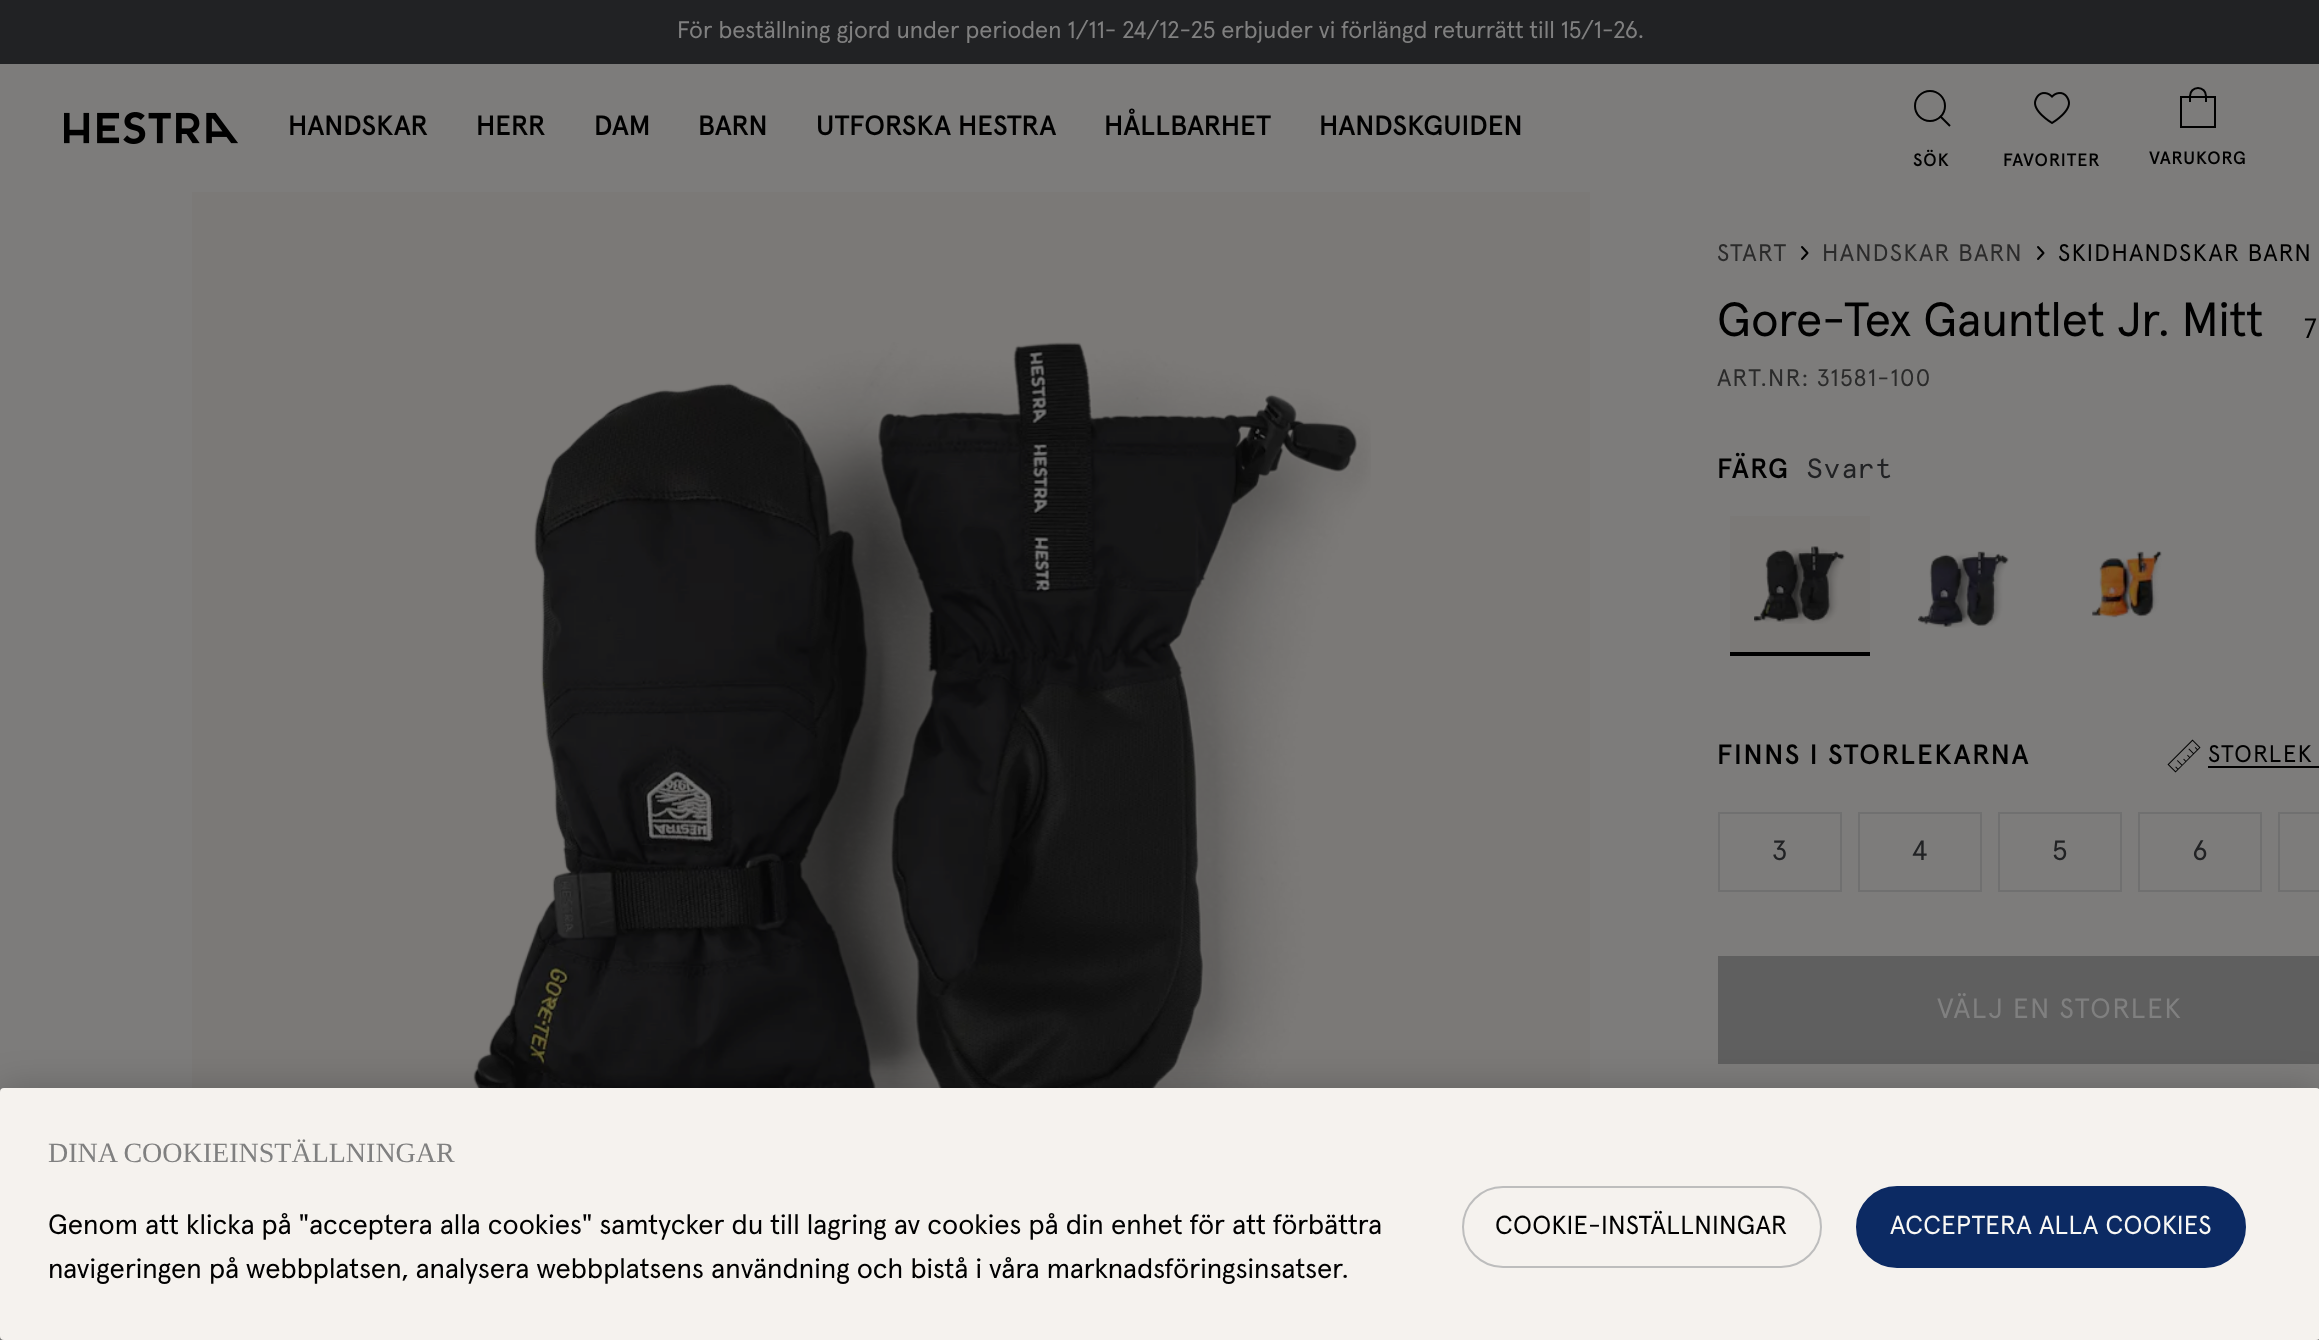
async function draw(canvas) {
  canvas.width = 2319;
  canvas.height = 1340;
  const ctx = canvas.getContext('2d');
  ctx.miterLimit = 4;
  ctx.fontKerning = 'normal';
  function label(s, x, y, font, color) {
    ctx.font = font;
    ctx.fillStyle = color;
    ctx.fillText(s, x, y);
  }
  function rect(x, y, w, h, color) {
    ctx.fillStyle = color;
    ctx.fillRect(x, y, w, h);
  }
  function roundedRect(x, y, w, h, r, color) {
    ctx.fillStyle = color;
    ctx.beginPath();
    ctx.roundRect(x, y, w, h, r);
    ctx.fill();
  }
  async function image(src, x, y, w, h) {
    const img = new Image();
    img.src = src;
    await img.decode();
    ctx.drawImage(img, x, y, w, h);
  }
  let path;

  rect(0, 0, 2319, 1340, '#7d7c7b');
  rect(0, 0, 2319, 64, '#212224');
  label('För beställning gjord under perioden 1/11- 24/12-25 erbjuder vi förlängd returrätt till 15/1-26.', 677, 38, '24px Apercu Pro', '#808080');
  await image('assets/img1.png', 64, 112, 174, 32);
  label('HANDSKAR', 288, 135, '500 28px Apercu Pro', '#000');
  label('HERR', 476, 135, '500 28px Apercu Pro', '#000');
  label('DAM', 594, 135, '500 28px Apercu Pro', '#000');
  label('BARN', 698, 135, '500 28px Apercu Pro', '#000');
  label('UTFORSKA HESTRA', 816, 135, '500 28px Apercu Pro', '#000');
  label('HÅLLBARHET', 1104, 135, '500 28px Apercu Pro', '#000');
  label('HANDSKGUIDEN', 1319, 135, '500 28px Apercu Pro', '#000');
  ctx.beginPath();
  ctx.arc(1930, 106, 15, 0, 2 * Math.PI);
  ctx.strokeStyle = '#000';
  ctx.lineWidth = 2;
  ctx.stroke();
  path = new Path2D('M1940 116L1950 126');
  ctx.stroke(path);
  ctx.letterSpacing = '1px';
  label('SÖK', 1913, 166, '500 18px Apercu Pro', '#000');
  await image('assets/img2.png', 2034, 92, 36, 32);
  label('FAVORITER', 2003, 166, '500 18px Apercu Pro', '#000');
  path = new Path2D('M2181 97H2215V127H2181ZM2190 102V96C2190 91.5 2193.5 88 2198 88C2202.5 88 2206 91.5 2206 96V102');
  ctx.stroke(path);
  label('VARUKORG', 2149, 164, '500 18px Apercu Pro', '#000');
  rect(192, 192, 1398, 896, '#7b7977');
  await image('assets/img3.png', 473, 342, 898, 746);
  ctx.letterSpacing = '1.4px';
  label('START', 1717, 261, '24px Apercu Pro', '#2b2b2b');
  path = new Path2D('M1802 259L1807.5 253L1802 247');
  ctx.lineCap = 'round';
  ctx.lineJoin = 'round';
  ctx.stroke(path);
  label('HANDSKAR BARN', 1822, 261, '24px Apercu Pro', '#2b2b2b');
  path = new Path2D('M2038 259L2043.5 253L2038 247');
  ctx.stroke(path);
  label('SKIDHANDSKAR BARN', 2058, 261, '24px Apercu Pro', '#000');
  ctx.letterSpacing = '0px';
  label('Gore-Tex Gauntlet Jr. Mitt', 1717, 336, '48px Apercu Pro', '#000');
  ctx.letterSpacing = '1.4px';
  label('ART.NR: 31581-100', 1717, 386, '24px Apercu Pro', '#2b2b2b');
  ctx.letterSpacing = '0px';
  label('7', 2304, 338, '28px Apercu Pro', '#000');
  ctx.letterSpacing = '1.7px';
  label('FÄRG', 1717, 478, '500 28px Apercu Pro', '#000');
  ctx.letterSpacing = '0px';
  label('Svart', 1806, 478, '28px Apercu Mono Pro', '#212224');
  rect(1730, 516, 140, 136, '#7b7977');
  await image('assets/img4.png', 1754, 546, 91, 78);
  rect(1730, 652, 140, 4, '#000');
  await image('assets/img5.png', 1918, 551, 91, 77);
  await image('assets/img6.png', 2092, 551, 70, 67);
  ctx.letterSpacing = '1.7px';
  label('FINNS I STORLEKARNA', 1717, 764, '500 28px Apercu Pro', '#000');
  await image('assets/img7.png', 2167, 739, 34, 34);
  ctx.letterSpacing = '1.4px';
  label('STORLEK', 2208, 762, '24px Apercu Pro', '#000');
  rect(2208, 766, 111, 2, '#000');
  ctx.strokeStyle = '#707070';
  ctx.lineJoin = 'miter';
  ctx.strokeRect(1719, 813, 122, 78);
  ctx.letterSpacing = '0px';
  label('3', 1771, 860, '28px Apercu Mono Pro', '#212224');
  ctx.strokeRect(1859, 813, 122, 78);
  label('4', 1911, 860, '28px Apercu Mono Pro', '#212224');
  ctx.strokeRect(1999, 813, 122, 78);
  label('5', 2051, 860, '28px Apercu Mono Pro', '#212224');
  ctx.strokeRect(2139, 813, 122, 78);
  label('6', 2191, 860, '28px Apercu Mono Pro', '#212224');
  ctx.fillStyle = '#707070';
  path = new Path2D('M2278 812V892H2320V890H2280V814H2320V812Z');
  ctx.fill(path);
  rect(1718, 956, 601, 108, '#5f5f5f');
  ctx.letterSpacing = '1.7px';
  label('VÄLJ EN STORLEK', 1937, 1018, '28px Apercu Pro', '#808080');
  ctx.fillStyle = '#00000033';
  ctx.filter = 'blur(18px)';
  ctx.beginPath();
  ctx.roundRect(0, 1088, 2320, 252, 4);
  ctx.fill();
  ctx.filter = 'none';
  roundedRect(0, 1088, 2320, 252, 4, '#f5f2ee');
  ctx.letterSpacing = '0px';
  label('DINA COOKIEINSTÄLLNINGAR', 48, 1162, '28px Liberation Serif', '#808080');
  label('Genom att klicka på "acceptera alla cookies" samtycker du till lagring av cookies på din enhet för att förbättra', 48, 1234, '28px Apercu Pro', '#000');
  label('navigeringen på webbplatsen, analysera webbplatsens användning och bistå i våra marknadsföringsinsatser.', 48, 1278, '28px Apercu Pro', '#000');
  ctx.beginPath();
  ctx.roundRect(1463, 1187, 358, 80, 40);
  ctx.strokeStyle = '#bdbdbd';
  ctx.stroke();
  ctx.letterSpacing = '0.25px';
  label('COOKIE-INSTÄLLNINGAR', 1495, 1234, '26px Apercu Pro', '#000');
  ctx.fillStyle = '#0c2a63';
  ctx.beginPath();
  ctx.roundRect(1857, 1187, 388, 80, 40);
  ctx.fill();
  ctx.strokeStyle = '#0c2a63';
  ctx.stroke();
  label('ACCEPTERA ALLA COOKIES', 1890, 1234, '26px Apercu Pro', '#f9f8f5');
}

draw(document.querySelector('canvas'));
